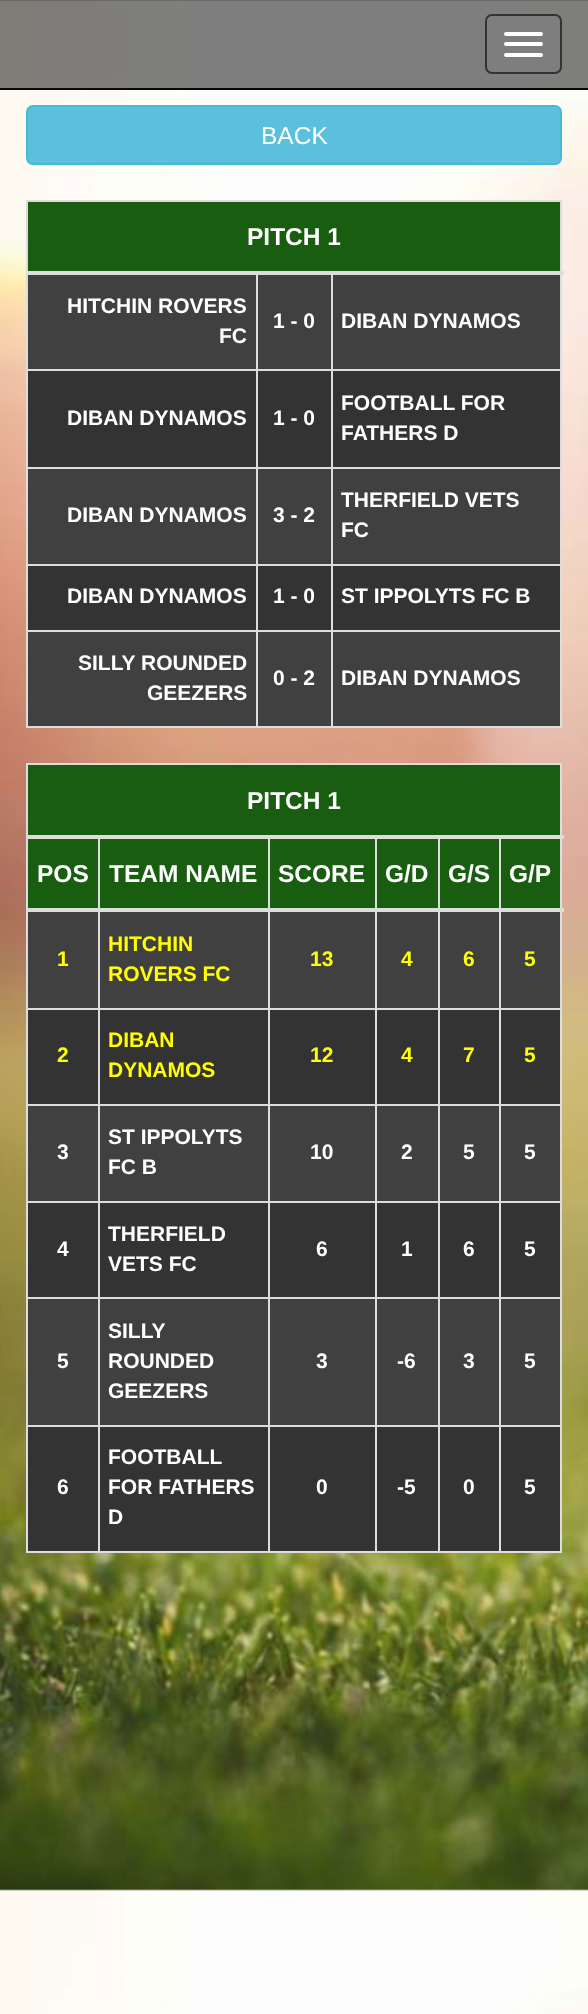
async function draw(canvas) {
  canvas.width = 588;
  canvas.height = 2014;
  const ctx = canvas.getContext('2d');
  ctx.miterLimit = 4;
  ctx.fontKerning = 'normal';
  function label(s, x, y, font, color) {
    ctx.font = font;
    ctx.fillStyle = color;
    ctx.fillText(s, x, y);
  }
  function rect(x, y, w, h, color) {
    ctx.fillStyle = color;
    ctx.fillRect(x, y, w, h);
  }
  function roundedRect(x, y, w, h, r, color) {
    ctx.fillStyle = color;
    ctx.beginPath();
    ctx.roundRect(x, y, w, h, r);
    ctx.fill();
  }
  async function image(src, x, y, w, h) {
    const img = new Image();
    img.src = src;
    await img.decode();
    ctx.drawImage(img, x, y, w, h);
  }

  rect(0, 0, 588, 2014, '#fff');
  await image('assets/img1.png', 0, 0, 588, 2014);
  rect(0, 0, 588, 88, '#00000080');
  rect(0, 88, 588, 2, '#080808');
  ctx.beginPath();
  ctx.roundRect(486, 15, 75, 58, 6);
  ctx.strokeStyle = '#333';
  ctx.lineWidth = 2;
  ctx.stroke();
  roundedRect(504, 32, 39, 4, 2, '#fff');
  roundedRect(504, 42, 39, 4, 2, '#fff');
  roundedRect(504, 53, 39, 4, 2, '#fff');
  ctx.fillStyle = '#5bc0de';
  ctx.beginPath();
  ctx.roundRect(27, 106, 534, 58, 6);
  ctx.fill();
  ctx.strokeStyle = '#46b8da';
  ctx.stroke();
  label('BACK', 261, 144, '24.5px Liberation Sans', '#fff');
  rect(26, 200, 536, 2, '#ddd');
  rect(560, 200, 2, 528, '#ddd');
  rect(26, 726, 536, 2, '#ddd');
  rect(26, 200, 2, 528, '#ddd');
  rect(28, 202, 532, 69, '#195d10');
  rect(28, 275, 532, 94, '#404040');
  rect(331, 369, 231, 2, '#ddd');
  rect(28, 371, 532, 96, '#333');
  rect(331, 467, 231, 2, '#ddd');
  rect(28, 469, 532, 95, '#404040');
  rect(331, 564, 231, 2, '#ddd');
  rect(28, 566, 532, 64, '#333');
  rect(331, 630, 231, 2, '#ddd');
  rect(28, 632, 532, 94, '#404040');
  rect(331, 630, 2, 98, '#ddd');
  rect(256, 630, 77, 2, '#ddd');
  rect(331, 564, 2, 68, '#ddd');
  rect(256, 564, 77, 2, '#ddd');
  rect(331, 467, 2, 98, '#ddd');
  rect(256, 467, 77, 2, '#ddd');
  rect(331, 369, 2, 100, '#ddd');
  rect(256, 369, 77, 2, '#ddd');
  rect(256, 630, 2, 98, '#ddd');
  rect(26, 630, 231, 2, '#ddd');
  rect(256, 564, 2, 68, '#ddd');
  rect(26, 564, 231, 2, '#ddd');
  rect(256, 467, 2, 98, '#ddd');
  rect(26, 467, 231, 2, '#ddd');
  rect(256, 369, 2, 100, '#ddd');
  rect(26, 369, 231, 2, '#ddd');
  rect(256, 273, 2, 98, '#ddd');
  rect(331, 273, 2, 98, '#ddd');
  rect(26, 271, 538, 4, '#ddd');
  label('PITCH 1', 247, 245, 'bold 24.5px Liberation Sans', '#fff');
  label('HITCHIN ROVERS', 67, 313, 'bold 21px Liberation Sans', '#fff');
  label('FC', 219, 343, 'bold 21px Liberation Sans', '#fff');
  label('1 - 0', 273, 328, 'bold 21px Liberation Sans', '#fff');
  label('DIBAN DYNAMOS', 341, 328, 'bold 21px Liberation Sans', '#fff');
  label('DIBAN DYNAMOS', 67, 425, 'bold 21px Liberation Sans', '#fff');
  label('1 - 0', 273, 425, 'bold 21px Liberation Sans', '#fff');
  label('FOOTBALL FOR', 341, 410, 'bold 21px Liberation Sans', '#fff');
  label('FATHERS D', 341, 440, 'bold 21px Liberation Sans', '#fff');
  label('DIBAN DYNAMOS', 67, 522, 'bold 21px Liberation Sans', '#fff');
  label('3 - 2', 273, 522, 'bold 21px Liberation Sans', '#fff');
  label('THERFIELD VETS', 341, 507, 'bold 21px Liberation Sans', '#fff');
  label('FC', 341, 537, 'bold 21px Liberation Sans', '#fff');
  label('DIBAN DYNAMOS', 67, 603, 'bold 21px Liberation Sans', '#fff');
  label('1 - 0', 273, 603, 'bold 21px Liberation Sans', '#fff');
  label('ST IPPOLYTS FC B', 341, 603, 'bold 21px Liberation Sans', '#fff');
  label('SILLY ROUNDED', 78, 670, 'bold 21px Liberation Sans', '#fff');
  label('GEEZERS', 147, 700, 'bold 21px Liberation Sans', '#fff');
  label('0 - 2', 273, 685, 'bold 21px Liberation Sans', '#fff');
  label('DIBAN DYNAMOS', 341, 685, 'bold 21px Liberation Sans', '#fff');
  rect(26, 763, 536, 2, '#ddd');
  rect(560, 763, 2, 789, '#ddd');
  rect(26, 1551, 536, 2, '#ddd');
  rect(26, 763, 2, 789, '#ddd');
  rect(28, 765, 532, 70, '#195d10');
  rect(28, 839, 532, 69, '#195d10');
  rect(28, 912, 532, 96, '#404040');
  rect(499, 1008, 63, 2, '#ddd');
  rect(28, 1010, 532, 94, '#333');
  rect(499, 1104, 63, 2, '#ddd');
  rect(28, 1106, 532, 95, '#404040');
  rect(499, 1201, 63, 2, '#ddd');
  rect(28, 1203, 532, 94, '#333');
  rect(499, 1297, 63, 2, '#ddd');
  rect(28, 1299, 532, 126, '#404040');
  rect(499, 1425, 63, 2, '#ddd');
  rect(28, 1427, 532, 124, '#333');
  rect(499, 1425, 2, 127, '#ddd');
  rect(438, 1425, 63, 2, '#ddd');
  rect(499, 1297, 2, 129, '#ddd');
  rect(438, 1297, 63, 2, '#ddd');
  rect(499, 1201, 2, 98, '#ddd');
  rect(438, 1201, 63, 2, '#ddd');
  rect(499, 1104, 2, 98, '#ddd');
  rect(438, 1104, 63, 2, '#ddd');
  rect(499, 1008, 2, 98, '#ddd');
  rect(438, 1008, 63, 2, '#ddd');
  rect(438, 1425, 2, 127, '#ddd');
  rect(375, 1425, 64, 2, '#ddd');
  rect(438, 1297, 2, 129, '#ddd');
  rect(375, 1297, 64, 2, '#ddd');
  rect(438, 1201, 2, 98, '#ddd');
  rect(375, 1201, 64, 2, '#ddd');
  rect(438, 1104, 2, 98, '#ddd');
  rect(375, 1104, 64, 2, '#ddd');
  rect(438, 1008, 2, 98, '#ddd');
  rect(375, 1008, 64, 2, '#ddd');
  rect(375, 1425, 2, 127, '#ddd');
  rect(268, 1425, 108, 2, '#ddd');
  rect(375, 1297, 2, 129, '#ddd');
  rect(268, 1297, 108, 2, '#ddd');
  rect(375, 1201, 2, 98, '#ddd');
  rect(268, 1201, 108, 2, '#ddd');
  rect(375, 1104, 2, 98, '#ddd');
  rect(268, 1104, 108, 2, '#ddd');
  rect(375, 1008, 2, 98, '#ddd');
  rect(268, 1008, 108, 2, '#ddd');
  rect(268, 1425, 2, 127, '#ddd');
  rect(98, 1425, 172, 2, '#ddd');
  rect(268, 1297, 2, 129, '#ddd');
  rect(98, 1297, 172, 2, '#ddd');
  rect(268, 1201, 2, 98, '#ddd');
  rect(98, 1201, 172, 2, '#ddd');
  rect(268, 1104, 2, 98, '#ddd');
  rect(98, 1104, 172, 2, '#ddd');
  rect(268, 1008, 2, 98, '#ddd');
  rect(98, 1008, 172, 2, '#ddd');
  rect(98, 1425, 2, 127, '#ddd');
  rect(26, 1425, 74, 2, '#ddd');
  rect(98, 1297, 2, 129, '#ddd');
  rect(26, 1297, 74, 2, '#ddd');
  rect(98, 1201, 2, 98, '#ddd');
  rect(26, 1201, 74, 2, '#ddd');
  rect(98, 1104, 2, 98, '#ddd');
  rect(26, 1104, 74, 2, '#ddd');
  rect(98, 1008, 2, 98, '#ddd');
  rect(26, 1008, 74, 2, '#ddd');
  rect(98, 837, 2, 173, '#ddd');
  rect(268, 837, 2, 173, '#ddd');
  rect(375, 837, 2, 173, '#ddd');
  rect(438, 837, 2, 173, '#ddd');
  rect(499, 837, 2, 173, '#ddd');
  rect(26, 835, 538, 4, '#ddd');
  label('PITCH 1', 247, 809, 'bold 24.5px Liberation Sans', '#fff');
  label('POS', 37, 882, 'bold 24.5px Liberation Sans', '#fff');
  label('TEAM NAME', 109, 882, 'bold 24.5px Liberation Sans', '#fff');
  label('SCORE', 278, 882, 'bold 24.5px Liberation Sans', '#fff');
  label('G/D', 385, 882, 'bold 24.5px Liberation Sans', '#fff');
  label('G/S', 448, 882, 'bold 24.5px Liberation Sans', '#fff');
  rect(26, 908, 538, 4, '#ddd');
  label('G/P', 509, 882, 'bold 24.5px Liberation Sans', '#fff');
  label('1', 57, 966, 'bold 21px Liberation Sans', '#ff0');
  label('HITCHIN', 108, 951, 'bold 21px Liberation Sans', '#ff0');
  label('ROVERS FC', 108, 981, 'bold 21px Liberation Sans', '#ff0');
  label('13', 310, 966, 'bold 21px Liberation Sans', '#ff0');
  label('4', 401, 966, 'bold 21px Liberation Sans', '#ff0');
  label('6', 463, 966, 'bold 21px Liberation Sans', '#ff0');
  label('5', 524, 966, 'bold 21px Liberation Sans', '#ff0');
  label('2', 57, 1062, 'bold 21px Liberation Sans', '#ff0');
  label('DIBAN', 108, 1047, 'bold 21px Liberation Sans', '#ff0');
  label('DYNAMOS', 108, 1077, 'bold 21px Liberation Sans', '#ff0');
  label('12', 310, 1062, 'bold 21px Liberation Sans', '#ff0');
  label('4', 401, 1062, 'bold 21px Liberation Sans', '#ff0');
  label('7', 463, 1062, 'bold 21px Liberation Sans', '#ff0');
  label('5', 524, 1062, 'bold 21px Liberation Sans', '#ff0');
  label('3', 57, 1159, 'bold 21px Liberation Sans', '#fff');
  label('ST IPPOLYTS', 108, 1144, 'bold 21px Liberation Sans', '#fff');
  label('FC B', 108, 1174, 'bold 21px Liberation Sans', '#fff');
  label('10', 310, 1159, 'bold 21px Liberation Sans', '#fff');
  label('2', 401, 1159, 'bold 21px Liberation Sans', '#fff');
  label('5', 463, 1159, 'bold 21px Liberation Sans', '#fff');
  label('5', 524, 1159, 'bold 21px Liberation Sans', '#fff');
  label('4', 57, 1256, 'bold 21px Liberation Sans', '#fff');
  label('THERFIELD', 108, 1241, 'bold 21px Liberation Sans', '#fff');
  label('VETS FC', 108, 1271, 'bold 21px Liberation Sans', '#fff');
  label('6', 316, 1256, 'bold 21px Liberation Sans', '#fff');
  label('1', 401, 1256, 'bold 21px Liberation Sans', '#fff');
  label('6', 463, 1256, 'bold 21px Liberation Sans', '#fff');
  label('5', 524, 1256, 'bold 21px Liberation Sans', '#fff');
  label('5', 57, 1368, 'bold 21px Liberation Sans', '#fff');
  label('SILLY', 108, 1338, 'bold 21px Liberation Sans', '#fff');
  label('ROUNDED', 108, 1368, 'bold 21px Liberation Sans', '#fff');
  label('GEEZERS', 108, 1398, 'bold 21px Liberation Sans', '#fff');
  label('3', 316, 1368, 'bold 21px Liberation Sans', '#fff');
  label('-6', 397, 1368, 'bold 21px Liberation Sans', '#fff');
  label('3', 463, 1368, 'bold 21px Liberation Sans', '#fff');
  label('5', 524, 1368, 'bold 21px Liberation Sans', '#fff');
  label('6', 57, 1494, 'bold 21px Liberation Sans', '#fff');
  label('FOOTBALL', 108, 1464, 'bold 21px Liberation Sans', '#fff');
  label('FOR FATHERS', 108, 1494, 'bold 21px Liberation Sans', '#fff');
  label('D', 108, 1524, 'bold 21px Liberation Sans', '#fff');
  label('0', 316, 1494, 'bold 21px Liberation Sans', '#fff');
  label('-5', 397, 1494, 'bold 21px Liberation Sans', '#fff');
  label('0', 463, 1494, 'bold 21px Liberation Sans', '#fff');
  label('5', 524, 1494, 'bold 21px Liberation Sans', '#fff');
}

draw(document.querySelector('canvas'));
